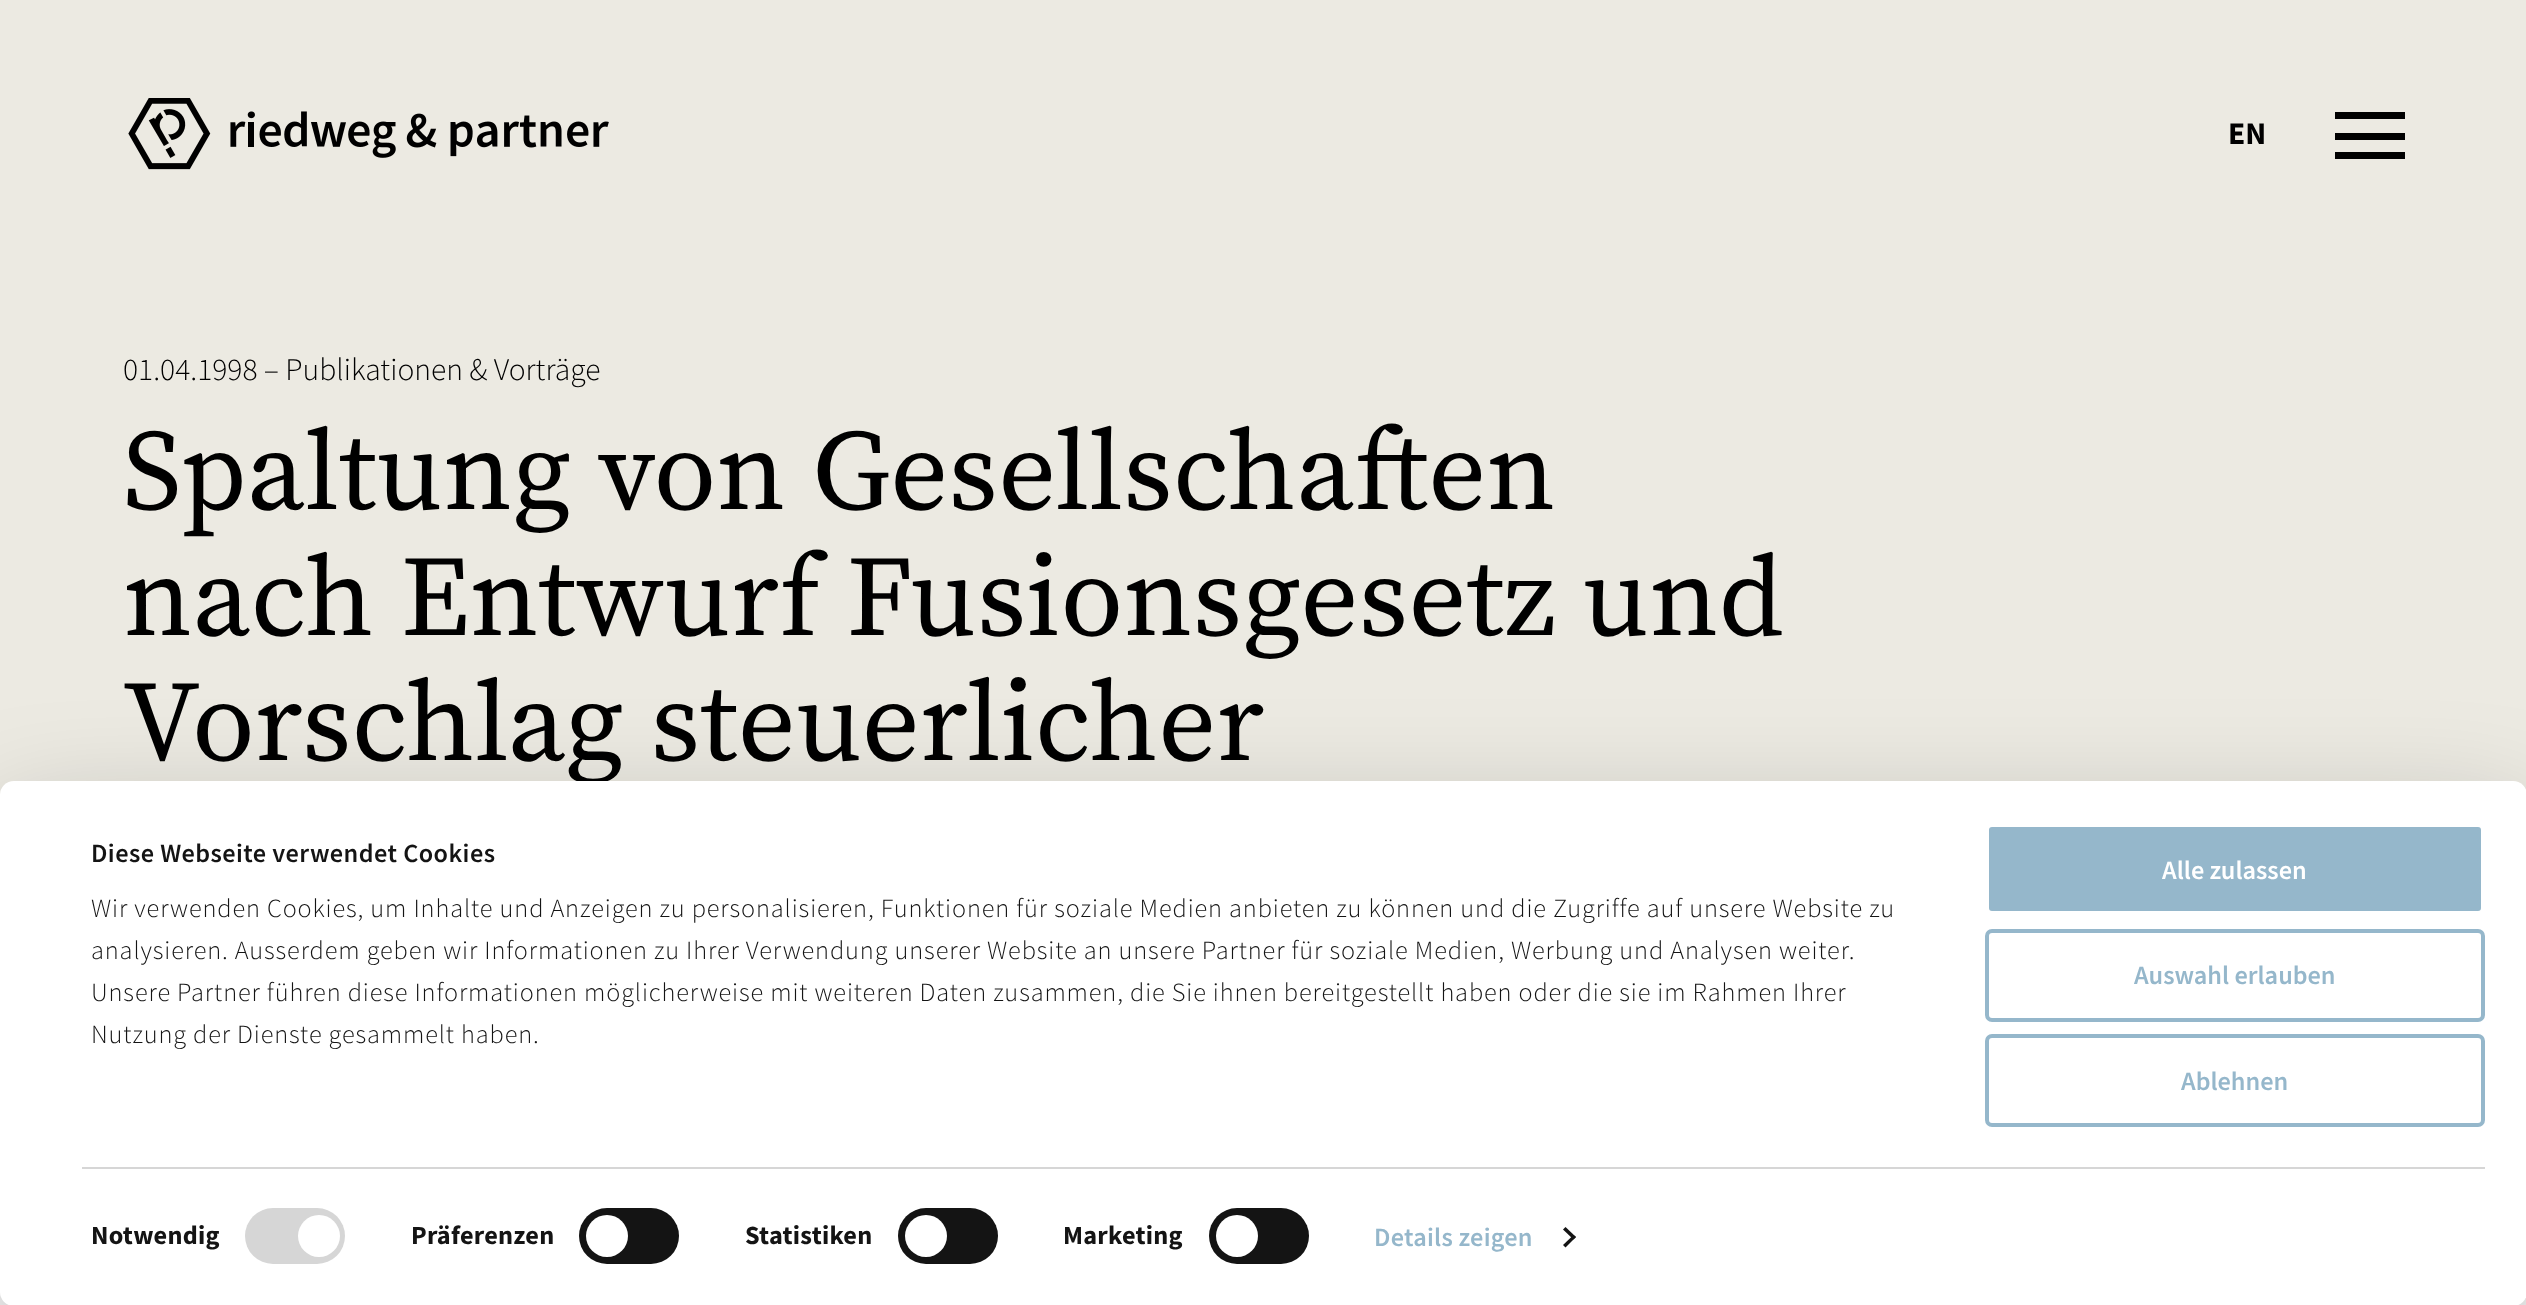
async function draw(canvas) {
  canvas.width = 2526;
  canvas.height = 1305;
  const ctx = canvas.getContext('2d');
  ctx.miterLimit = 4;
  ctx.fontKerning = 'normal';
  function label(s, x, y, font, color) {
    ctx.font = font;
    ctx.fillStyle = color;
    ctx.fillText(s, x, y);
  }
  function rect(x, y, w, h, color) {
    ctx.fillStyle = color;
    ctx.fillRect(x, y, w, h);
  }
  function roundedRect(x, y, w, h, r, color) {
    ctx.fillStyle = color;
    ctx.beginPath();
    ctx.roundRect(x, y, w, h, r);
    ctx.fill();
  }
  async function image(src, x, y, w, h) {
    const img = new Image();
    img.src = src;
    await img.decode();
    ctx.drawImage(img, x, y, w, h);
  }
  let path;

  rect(0, 0, 2526, 1305, '#fff');
  rect(0, 0, 2526, 795, '#eceae2');
  await image('assets/img1.png', 128, 98, 481, 72);
  label('EN', 2228, 144, 'bold 31.5px Source Sans Pro', '#000');
  rect(2335, 133, 70, 7, '#000');
  rect(2335, 112, 70, 7, '#000');
  rect(2335, 152, 70, 7, '#000');
  label('01.04.1998 – Publikationen & Vorträge', 123, 380, '300 31.5px Source Sans Pro', '#000');
  label('Spaltung von Gesellschaften', 123, 509, '114.25px Source Serif Pro', '#000');
  label('nach Entwurf Fusionsgesetz und', 123, 635, '114.25px Source Serif Pro', '#000');
  label('Vorschlag steuerlicher', 123, 760, '114.25px Source Serif Pro', '#000');
  ctx.fillStyle = '#0000004d';
  ctx.filter = 'blur(61px)';
  ctx.beginPath();
  ctx.roundRect(0, 833, 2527, 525, 14);
  ctx.fill();
  ctx.filter = 'none';
  roundedRect(0, 781, 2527, 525, 14, '#fff');
  ctx.letterSpacing = '0.45px';
  label('Diese Webseite verwendet Cookies', 91, 862, '600 26.25px Source Sans Pro', '#141414');
  ctx.letterSpacing = '0.88px';
  label('Wir verwenden Cookies, um Inhalte und Anzeigen zu personalisieren, Funktionen für soziale Medien anbieten zu können und die Zugriffe auf unsere Website zu', 91, 917, '300 26.25px Source Sans Pro', '#141414');
  label('analysieren. Ausserdem geben wir Informationen zu Ihrer Verwendung unserer Website an unsere Partner für soziale Medien, Werbung und Analysen weiter.', 91, 959, '300 26.25px Source Sans Pro', '#141414');
  label('Unsere Partner führen diese Informationen möglicherweise mit weiteren Daten zusammen, die Sie ihnen bereitgestellt haben oder die sie im Rahmen Ihrer', 91, 1001, '300 26.25px Source Sans Pro', '#141414');
  label('Nutzung der Dienste gesammelt haben.', 91, 1043, '300 26.25px Source Sans Pro', '#141414');
  rect(82, 1167, 2403, 2, '#d6d6d6');
  ctx.letterSpacing = '0.25px';
  label('Notwendig', 91, 1244, 'bold 26.25px Source Sans Pro', '#141414');
  roundedRect(245, 1208, 100, 56, 28, '#d6d6d6');
  ctx.fillStyle = '#fff';
  ctx.beginPath();
  ctx.arc(319, 1236, 21, 0, 2 * Math.PI);
  ctx.fill();
  label('Präferenzen', 411, 1244, 'bold 26.25px Source Sans Pro', '#141414');
  roundedRect(579, 1208, 100, 56, 28, '#141414');
  ctx.fillStyle = '#fff';
  ctx.beginPath();
  ctx.arc(607, 1236, 21, 0, 2 * Math.PI);
  ctx.fill();
  label('Statistiken', 745, 1244, 'bold 26.25px Source Sans Pro', '#141414');
  roundedRect(898, 1208, 100, 56, 28, '#141414');
  ctx.fillStyle = '#fff';
  ctx.beginPath();
  ctx.arc(926, 1236, 21, 0, 2 * Math.PI);
  ctx.fill();
  label('Marketing', 1063, 1244, 'bold 26.25px Source Sans Pro', '#141414');
  roundedRect(1209, 1208, 100, 56, 28, '#141414');
  ctx.fillStyle = '#fff';
  ctx.beginPath();
  ctx.arc(1237, 1236, 21, 0, 2 * Math.PI);
  ctx.fill();
  label('Details zeigen', 1374, 1246, '600 26.25px Source Sans Pro', '#95b7cb');
  ctx.fillStyle = '#141414';
  path = new Path2D('M1565.5 1227L1576 1237L1573.5 1239.5L1563 1229.5Z');
  ctx.fill(path);
  path = new Path2D('M1573.5 1235L1576 1237L1565.5 1247.5L1563 1245Z');
  ctx.fill(path);
  ctx.fillStyle = '#95b7cb';
  ctx.beginPath();
  ctx.roundRect(1987, 825, 496, 88, 5);
  ctx.fill();
  ctx.strokeStyle = '#fff';
  ctx.lineWidth = 4;
  ctx.stroke();
  ctx.letterSpacing = '0px';
  label('Alle zulassen', 2162, 879, '600 26.25px Source Sans Pro', '#fff');
  ctx.beginPath();
  ctx.roundRect(1987, 931, 496, 89, 5);
  ctx.strokeStyle = '#95b7cb';
  ctx.stroke();
  label('Auswahl erlauben', 2134, 984, '600 26.25px Source Sans Pro', '#95b7cb');
  ctx.beginPath();
  ctx.roundRect(1987, 1036, 496, 89, 5);
  ctx.stroke();
  label('Ablehnen', 2181, 1090, '600 26.25px Source Sans Pro', '#95b7cb');
}

draw(document.querySelector('canvas'));
